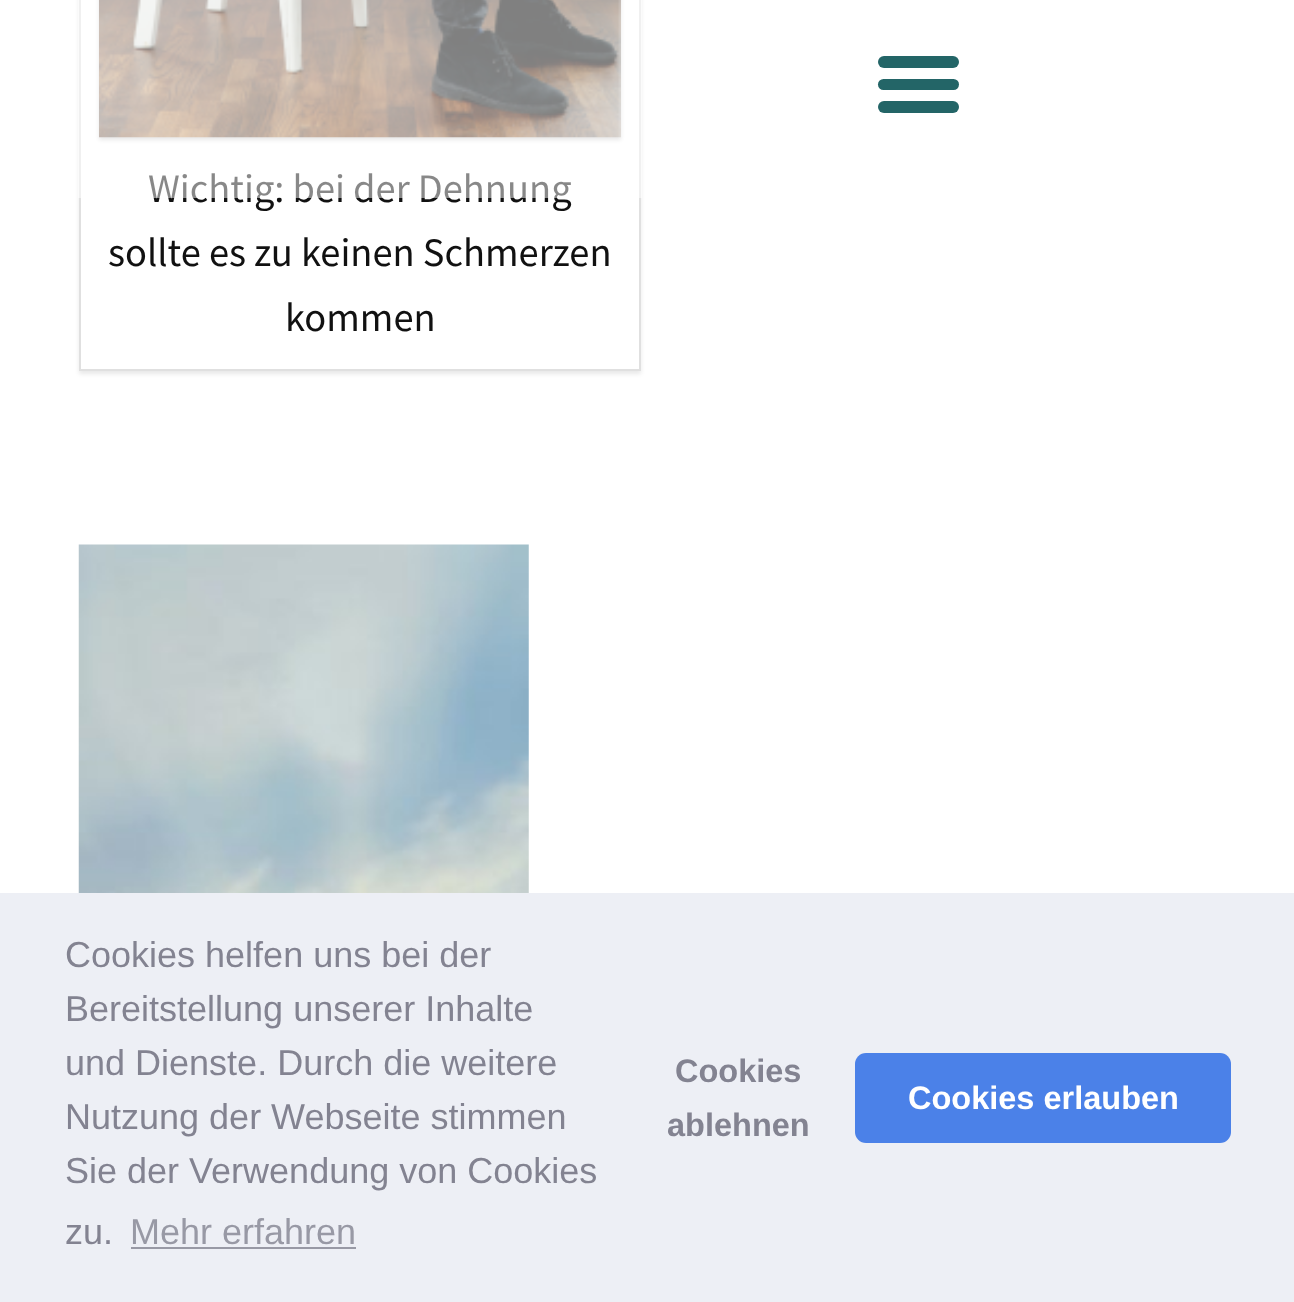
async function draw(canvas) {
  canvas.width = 1294;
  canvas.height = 1302;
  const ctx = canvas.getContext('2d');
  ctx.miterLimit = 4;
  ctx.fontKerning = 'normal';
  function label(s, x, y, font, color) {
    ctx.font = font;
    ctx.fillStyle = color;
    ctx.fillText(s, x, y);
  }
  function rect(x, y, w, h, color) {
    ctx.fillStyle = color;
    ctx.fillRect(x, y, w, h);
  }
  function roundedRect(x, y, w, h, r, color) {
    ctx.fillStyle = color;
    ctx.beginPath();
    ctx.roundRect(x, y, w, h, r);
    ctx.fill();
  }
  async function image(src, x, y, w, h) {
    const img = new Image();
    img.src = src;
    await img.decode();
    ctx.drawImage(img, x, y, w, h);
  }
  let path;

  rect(0, 0, 1294, 1302, '#fff');
  roundedRect(878, 79, 81, 11, 5.5, '#236567');
  roundedRect(878, 56, 81, 12, 6, '#236567');
  roundedRect(878, 101, 81, 12, 6, '#236567');
  ctx.save();
  path = new Path2D('M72 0H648V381H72ZM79-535H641V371H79Z');
  ctx.clip(path, 'evenodd');
  ctx.fillStyle = '#00000017';
  ctx.filter = 'blur(2px)';
  ctx.beginPath();
  ctx.rect(79, -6, 562, 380);
  ctx.fill();
  ctx.filter = 'none';
  ctx.restore();
  ctx.strokeStyle = '#e0e0e0';
  ctx.lineWidth = 2;
  ctx.strokeRect(80, -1, 560, 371);
  ctx.fillStyle = '#0000002e';
  ctx.filter = 'blur(2px)';
  ctx.beginPath();
  ctx.rect(99, -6, 522, 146);
  ctx.fill();
  ctx.filter = 'none';
  await image('assets/img1.png', 99, 0, 522, 138);
  label('Wichtig: bei der Dehnung', 148, 202, '40.5px Source Sans Pro', '#111');
  rect(78, 0, 564, 198, '#ffffff80');
  label('sollte es zu keinen Schmerzen', 108, 266, '40.5px Source Sans Pro', '#111');
  label('kommen', 285, 331, '40.5px Source Sans Pro', '#111');
  await image('assets/img2.png', 78, 544, 451, 349);
  rect(0, 893, 1294, 409, '#edeff5');
  label('Cookies helfen uns bei der', 65, 967, '36px Liberation Sans', '#838391');
  label('Bereitstellung unserer Inhalte', 65, 1021, '36px Liberation Sans', '#838391');
  label('und Dienste. Durch die weitere', 65, 1075, '36px Liberation Sans', '#838391');
  label('Nutzung der Webseite stimmen', 65, 1129, '36px Liberation Sans', '#838391');
  label('Sie der Verwendung von Cookies', 65, 1183, '36px Liberation Sans', '#838391');
  label('zu.', 65, 1244, '36px Liberation Sans', '#838391');
  label('Mehr erfahren', 130, 1244, '36px Liberation Sans', '#9899a5');
  rect(131, 1247, 225, 2, '#9899a5');
  label('Cookies', 675, 1082, 'bold 32.5px Liberation Sans', '#838391');
  label('ablehnen', 667, 1136, 'bold 32.5px Liberation Sans', '#838391');
  roundedRect(855, 1053, 376, 90, 11, '#4b81e8');
  label('Cookies erlauben', 908, 1109, 'bold 32.5px Liberation Sans', '#fff');
}

draw(document.querySelector('canvas'));
